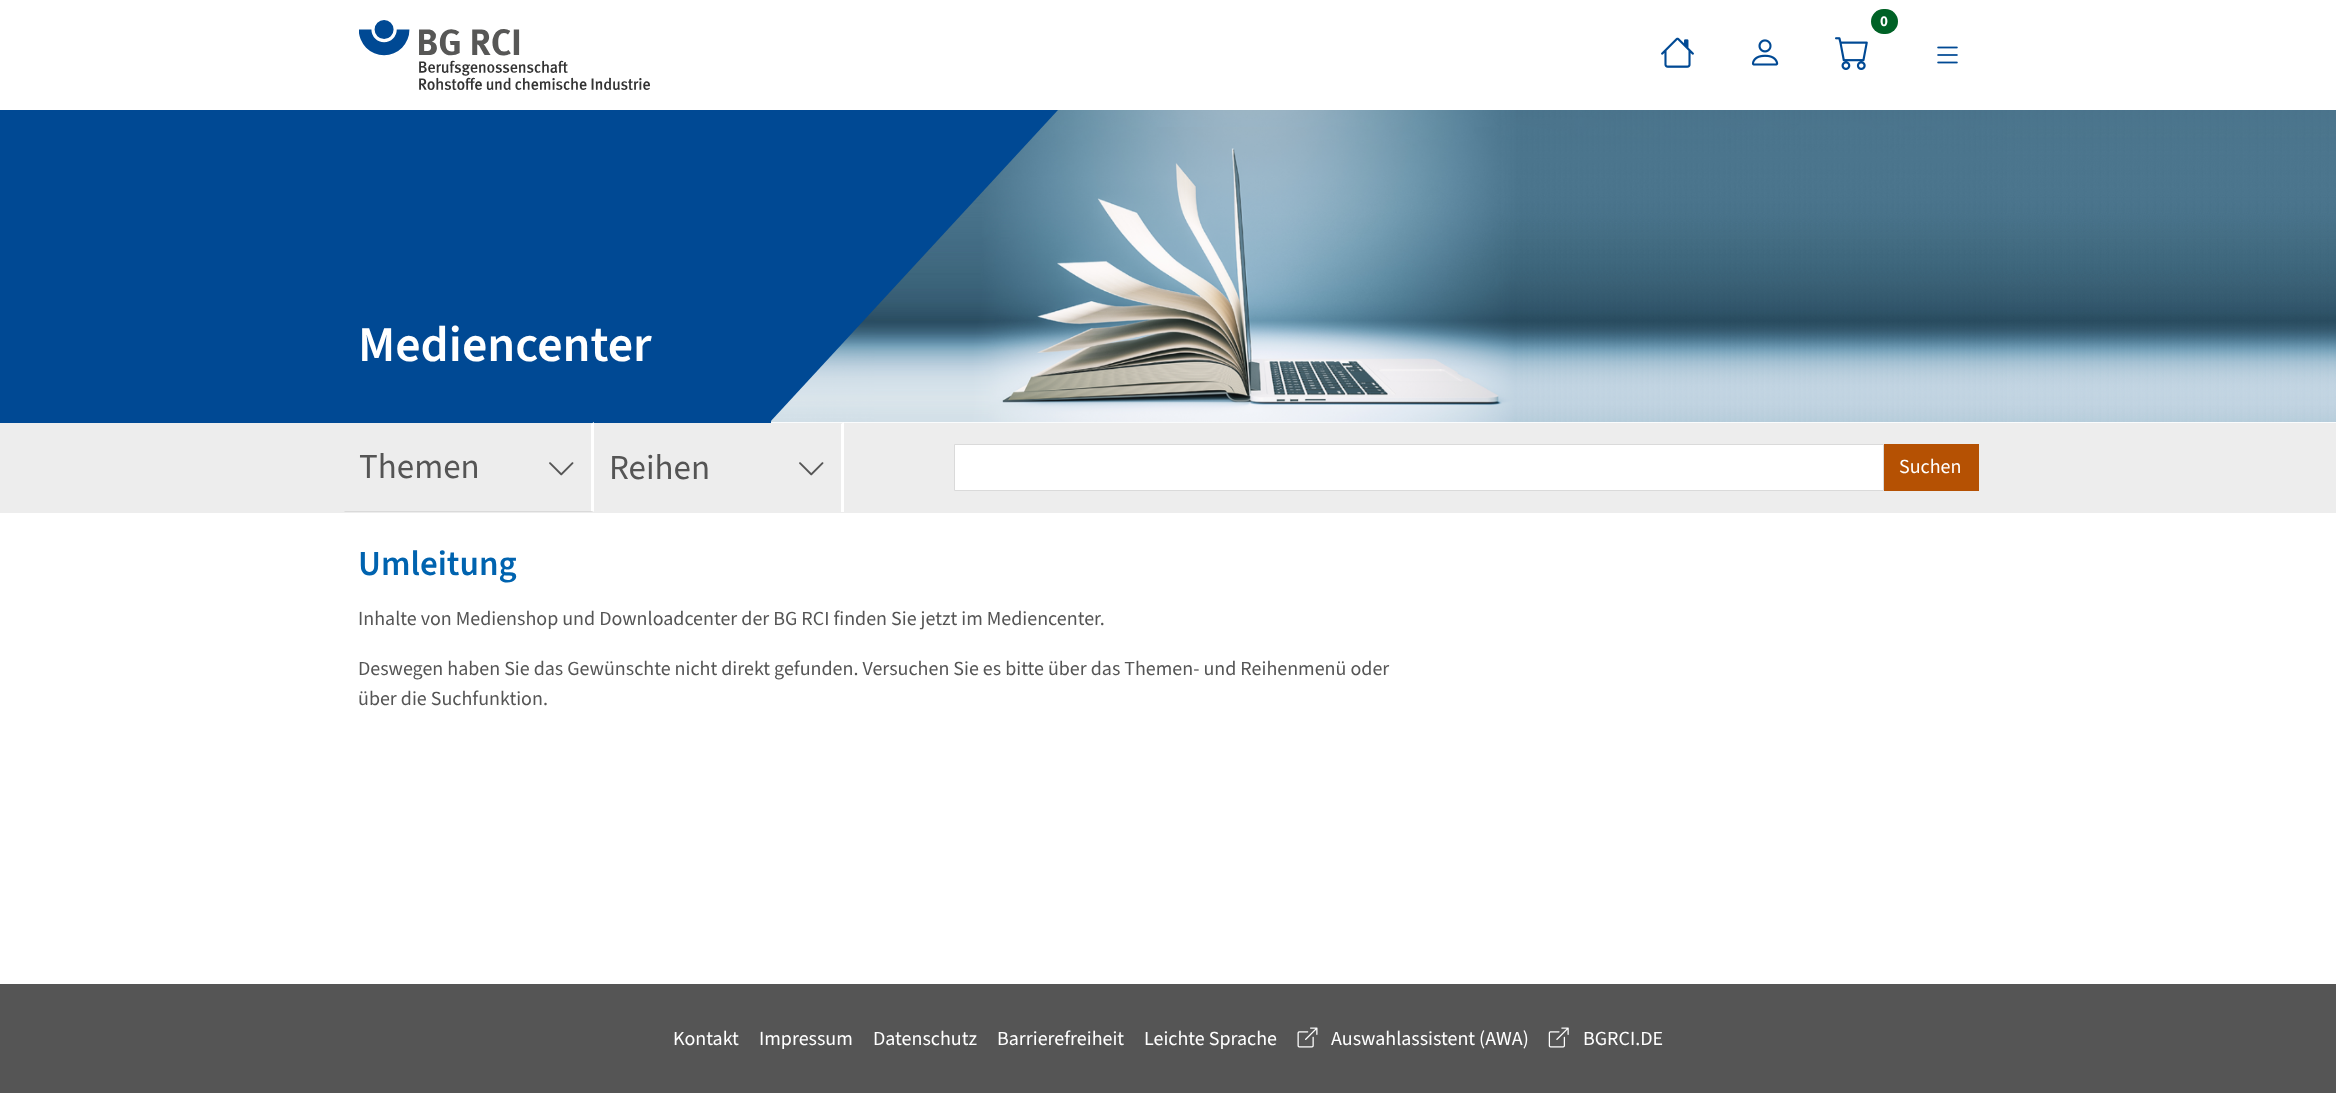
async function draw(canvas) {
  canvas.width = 2336;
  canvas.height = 1093;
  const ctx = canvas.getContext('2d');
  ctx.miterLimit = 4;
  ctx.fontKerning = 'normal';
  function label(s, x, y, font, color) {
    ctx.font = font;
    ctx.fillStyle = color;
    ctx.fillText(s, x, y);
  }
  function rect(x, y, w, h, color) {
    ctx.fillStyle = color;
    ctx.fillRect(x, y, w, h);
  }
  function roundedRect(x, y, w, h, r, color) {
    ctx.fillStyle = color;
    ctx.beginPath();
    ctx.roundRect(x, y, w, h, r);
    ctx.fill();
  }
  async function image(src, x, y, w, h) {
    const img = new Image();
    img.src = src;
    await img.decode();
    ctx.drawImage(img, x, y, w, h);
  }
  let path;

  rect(0, 0, 2336, 1093, '#fff');
  await image('assets/img1.png', 359, 20, 291, 70);
  roundedRect(1871, 9, 27, 25, 12.5, '#006226');
  label('0', 1880, 26, 'bold 15px "Source Sans 3"', '#fff');
  await image('assets/img2.png', 1835, 37, 33, 33);
  await image('assets/img3.png', 1661, 37, 33, 31);
  await image('assets/img4.png', 1751, 39, 28, 27);
  await image('assets/img5.png', 1937, 46, 21, 18);
  await image('assets/img6.png', 771, 110, 1565, 313);
  rect(0, 110, 771, 313, '#004994');
  await image('assets/img7.png', 771, 110, 1232, 312);
  path = new Path2D('M770 110V422L1058 110Z');
  ctx.fill(path);
  label('Mediencenter', 358, 361, '600 50px "Source Sans 3"', '#fff');
  rect(0, 423, 2336, 90, '#ededed');
  ctx.fillStyle = '#fff';
  path = new Path2D('M594 422V512L591 511V424Z');
  ctx.fill(path);
  ctx.fillStyle = '#dadada';
  path = new Path2D('M594 512H344L345 511H591Z');
  ctx.fill(path);
  label('Themen', 359, 478, '35px "Source Sans 3"', '#555');
  await image('assets/img8.png', 549, 462, 25, 14);
  ctx.fillStyle = '#fff';
  path = new Path2D('M844 422V512H841V424Z');
  ctx.fill(path);
  label('Reihen', 609, 479, '35px "Source Sans 3"', '#555');
  await image('assets/img8.png', 799, 462, 25, 14);
  ctx.fillStyle = '#fff';
  ctx.beginPath();
  ctx.rect(954.5, 444.5, 929, 46);
  ctx.fill();
  ctx.strokeStyle = '#dadada';
  ctx.stroke();
  rect(1884, 444, 95, 47, '#b55103');
  label('Suchen', 1899, 473, '20px "Source Sans 3"', '#fff');
  label('Umleitung', 358, 575, '600 35px "Source Sans 3"', '#0063af');
  label('Inhalte von Medienshop und Downloadcenter der BG RCI finden Sie jetzt im Mediencenter.', 358, 625, '20px "Source Sans 3"', '#555');
  label('Deswegen haben Sie das Gewünschte nicht direkt gefunden. Versuchen Sie es bitte über das Themen- und Reihenmenü oder', 358, 675, '20px "Source Sans 3"', '#555');
  label('über die Suchfunktion.', 358, 705, '20px "Source Sans 3"', '#555');
  rect(0, 984, 2336, 109, '#555');
  label('Kontakt', 673, 1045, '20px "Source Sans 3"', '#fff');
  label('Impressum', 759, 1045, '20px "Source Sans 3"', '#fff');
  label('Datenschutz', 873, 1045, '20px "Source Sans 3"', '#fff');
  label('Barrierefreiheit', 997, 1045, '20px "Source Sans 3"', '#fff');
  label('Leichte Sprache', 1144, 1045, '20px "Source Sans 3"', '#fff');
  await image('assets/img9.png', 1297, 1027, 21, 21);
  label('Auswahlassistent (AWA)', 1331, 1045, '20px "Source Sans 3"', '#fff');
  await image('assets/img10.png', 1548, 1027, 21, 21);
  label('BGRCI.DE', 1583, 1045, '20px "Source Sans 3"', '#fff');
}

draw(document.querySelector('canvas'));
